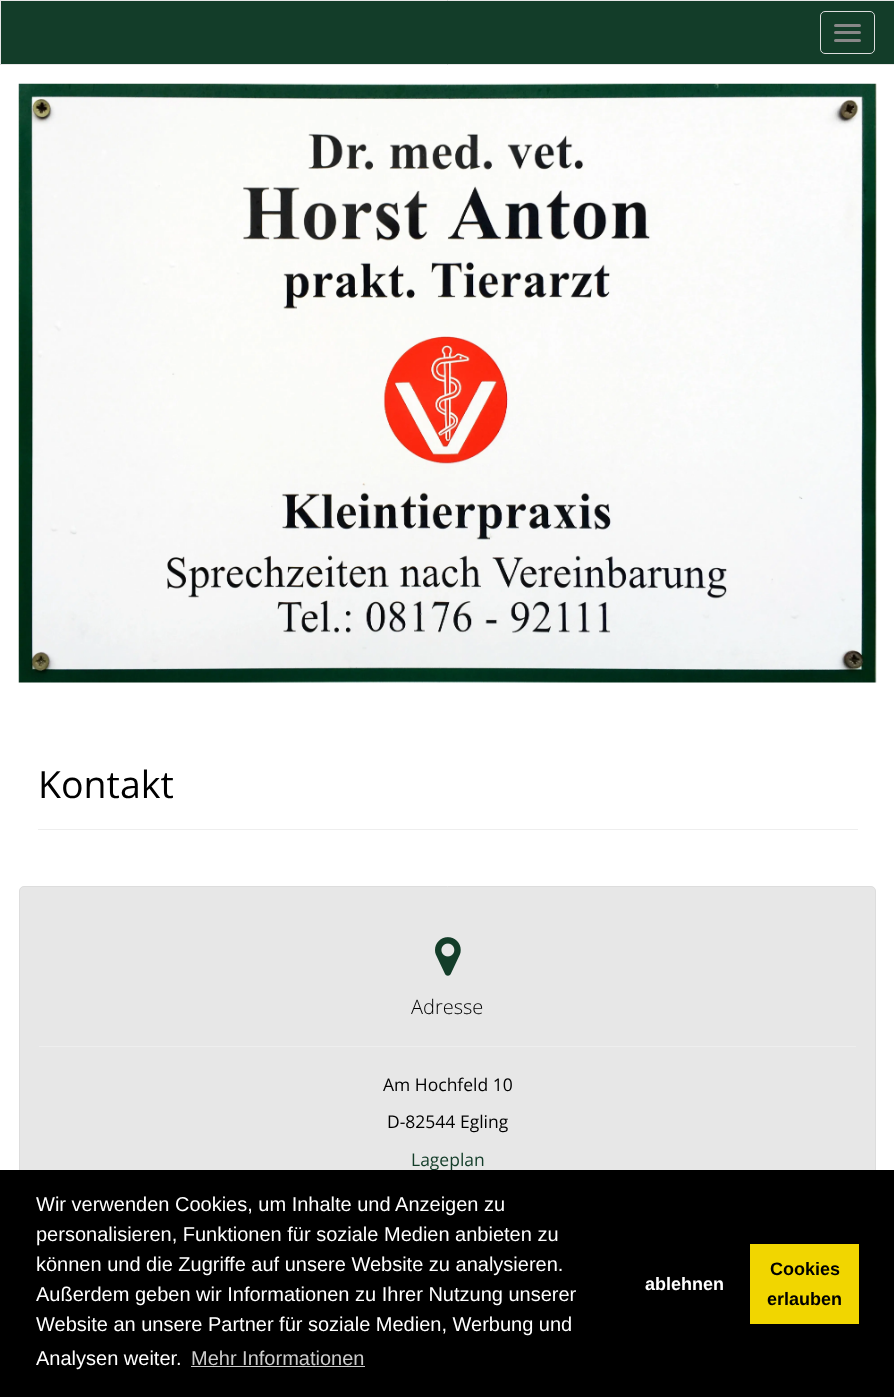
async function draw(canvas) {
  canvas.width = 894;
  canvas.height = 1397;
  const ctx = canvas.getContext('2d');
  ctx.miterLimit = 4;
  ctx.fontKerning = 'normal';
  function label(s, x, y, font, color) {
    ctx.font = font;
    ctx.fillStyle = color;
    ctx.fillText(s, x, y);
  }
  function rect(x, y, w, h, color) {
    ctx.fillStyle = color;
    ctx.fillRect(x, y, w, h);
  }
  function roundedRect(x, y, w, h, r, color) {
    ctx.fillStyle = color;
    ctx.beginPath();
    ctx.roundRect(x, y, w, h, r);
    ctx.fill();
  }
  async function image(src, x, y, w, h) {
    const img = new Image();
    img.src = src;
    await img.decode();
    ctx.drawImage(img, x, y, w, h);
  }

  rect(0, 0, 894, 1397, '#fff');
  ctx.fillStyle = '#133d29';
  ctx.beginPath();
  ctx.rect(0.5, 0.5, 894, 64);
  ctx.fill();
  ctx.strokeStyle = '#e7e7e7';
  ctx.stroke();
  ctx.beginPath();
  ctx.roundRect(820.5, 11.5, 54, 42, 4.5);
  ctx.strokeStyle = '#ddd';
  ctx.stroke();
  roundedRect(834, 24, 27, 3, 1.5, '#888');
  roundedRect(834, 31, 27, 3, 1.5, '#888');
  roundedRect(834, 39, 27, 3, 1.5, '#888');
  await image('assets/img1.png', 18, 83, 859, 600);
  rect(38, 829, 820, 1, '#eee');
  label('Kontakt', 38, 798, '37.5px Open Sans', '#000');
  ctx.fillStyle = '#e7e7e7';
  ctx.beginPath();
  ctx.roundRect(19.5, 886.5, 856, 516, 4.5);
  ctx.fill();
  ctx.stroke();
  await image('assets/img2.png', 435, 937, 26, 39);
  label('Adresse', 411, 1014, '300 20px Open Sans', '#000');
  rect(39, 1046, 817, 1, '#eee');
  label('Am Hochfeld 10', 383, 1091, '17.5px Open Sans', '#000');
  label('D-82544 Egling', 387, 1128, '17.5px Open Sans', '#000');
  label('Lageplan', 411, 1166, '17.5px Open Sans', '#133d29');
  rect(0, 1170, 894, 227, '#000');
  label('Wir verwenden Cookies, um Inhalte und Anzeigen zu', 36, 1211, '20px Liberation Sans', '#fff');
  label('personalisieren, Funktionen für soziale Medien anbieten zu', 36, 1241, '20px Liberation Sans', '#fff');
  label('können und die Zugriffe auf unsere Website zu analysieren.', 36, 1271, '20px Liberation Sans', '#fff');
  label('Außerdem geben wir Informationen zu Ihrer Nutzung unserer', 36, 1301, '20px Liberation Sans', '#fff');
  label('Website an unsere Partner für soziale Medien, Werbung und', 36, 1331, '20px Liberation Sans', '#fff');
  label('Analysen weiter.', 36, 1365, '20px Liberation Sans', '#fff');
  label('Mehr Informationen', 191, 1365, '20px Liberation Sans', '#ccc');
  rect(191, 1366, 174, 1, '#ccc');
  label('ablehnen', 645, 1290, 'bold 18px Liberation Sans', '#fff');
  rect(750, 1244, 109, 80, '#f1d600');
  label('Cookies', 770, 1275, 'bold 18px Liberation Sans', '#000');
  label('erlauben', 767, 1305, 'bold 18px Liberation Sans', '#000');
}

draw(document.querySelector('canvas'));
